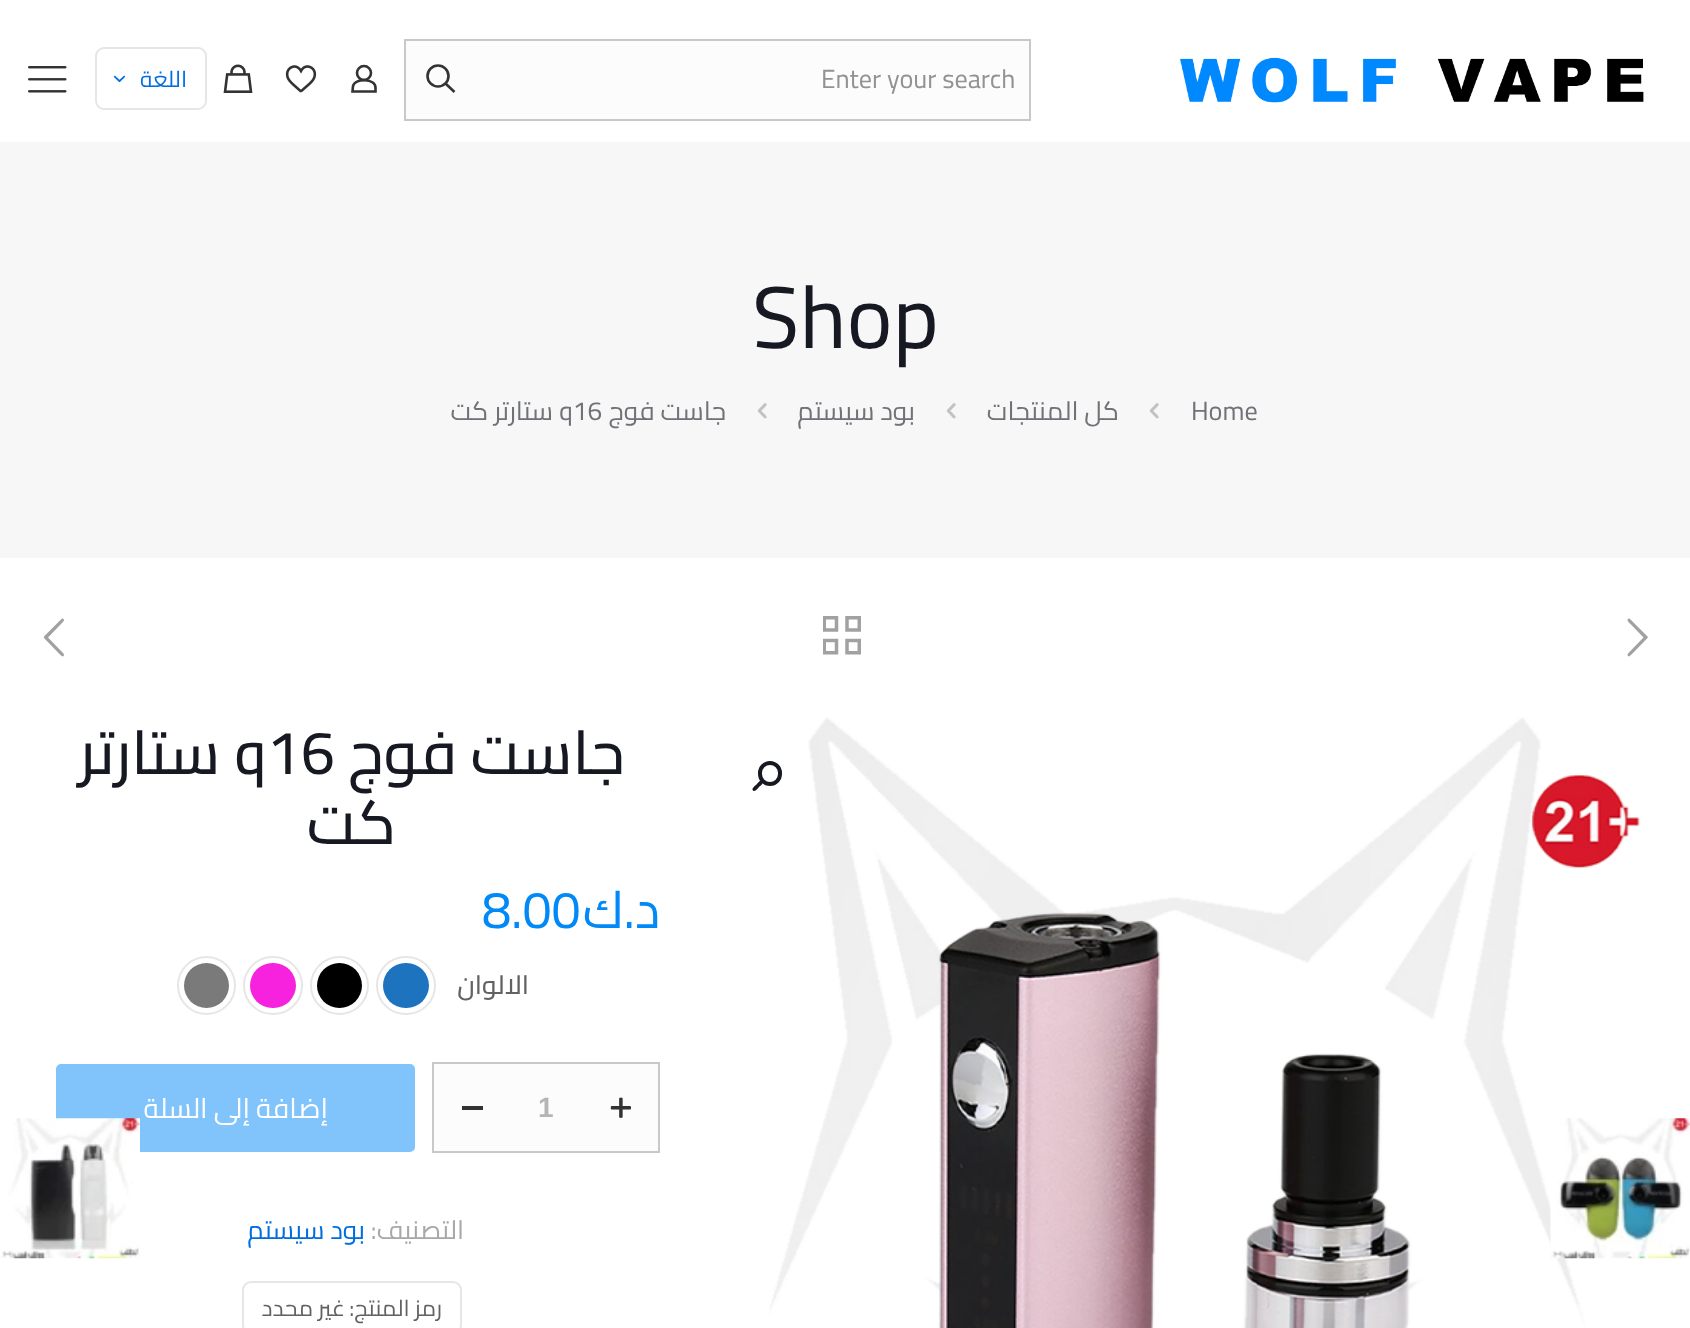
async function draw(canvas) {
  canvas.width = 1690;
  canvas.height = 1328;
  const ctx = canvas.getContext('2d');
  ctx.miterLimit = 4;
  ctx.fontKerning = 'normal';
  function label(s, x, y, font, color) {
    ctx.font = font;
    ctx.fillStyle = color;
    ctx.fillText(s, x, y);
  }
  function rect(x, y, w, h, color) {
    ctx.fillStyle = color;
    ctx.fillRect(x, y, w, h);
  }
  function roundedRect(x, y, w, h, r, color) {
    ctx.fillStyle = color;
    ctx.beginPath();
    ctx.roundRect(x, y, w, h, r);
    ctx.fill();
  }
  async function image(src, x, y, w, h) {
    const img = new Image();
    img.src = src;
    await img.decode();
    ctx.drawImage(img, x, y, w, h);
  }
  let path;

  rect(0, 0, 1690, 1328, '#fff');
  await image('assets/img9.png', 769, 717, 872, 611);
  await image('assets/img1.png', 1550, 1118, 140, 141);
  rect(0, 142, 1690, 416, '#f7f7f7');
  await image('assets/img2.png', 1180, 57, 464, 46);
  ctx.fillStyle = '#fcfcfc';
  ctx.beginPath();
  ctx.rect(405, 40, 625, 80);
  ctx.fill();
  ctx.strokeStyle = '#c8c8c8';
  ctx.lineWidth = 2;
  ctx.stroke();
  label('Enter your search', 821, 88, '26.25px Cairo', '#929292');
  ctx.beginPath();
  ctx.arc(438, 76, 10.5, 0, 2 * Math.PI);
  ctx.strokeStyle = '#333';
  ctx.lineWidth = 2.6;
  ctx.stroke();
  path = new Path2D('M445.5 83.5L454.5 92');
  ctx.stroke(path);
  ctx.beginPath();
  ctx.arc(364, 73, 7, 0, 2 * Math.PI);
  ctx.stroke();
  path = new Path2D('M375.5 87.5V91.5H352.5L353 86C355.5 77.5 375.5 78.5 375.5 87.5Z');
  ctx.stroke(path);
  await image('assets/img3.png', 285, 65, 32, 28);
  await image('assets/img4.png', 223, 64, 30, 29);
  ctx.beginPath();
  ctx.roundRect(96, 48, 110, 61, 8);
  ctx.strokeStyle = '#e6e6e6';
  ctx.lineWidth = 2;
  ctx.stroke();
  ctx.direction = 'rtl';
  label('اللغة', 187, 87, '22.75px Cairo', '#006edf');
  await image('assets/img5.png', 113, 75, 13, 8);
  await image('assets/img6.png', 28, 66, 39, 27);
  ctx.direction = 'ltr';
  label('Shop', 752, 348, '87.5px Cairo', '#161922');
  label('Home', 1191, 420, '26.25px Cairo', '#707277');
  await image('assets/img7.png', 1149, 403, 10, 16);
  ctx.direction = 'rtl';
  label('كل المنتجات', 1119, 420, '26.25px Cairo', '#707277');
  await image('assets/img7.png', 946, 403, 10, 16);
  label('بود سيستم', 915, 420, '26.25px Cairo', '#707277');
  await image('assets/img7.png', 757, 403, 10, 16);
  label('جاست فوج', 726, 420, '26.25px Cairo', '#707277');
  ctx.direction = 'ltr';
  label('q16', 559, 420, '26.25px Cairo', '#707277');
  ctx.direction = 'rtl';
  label('ستارتر كت', 553, 420, '26.25px Cairo', '#707277');
  ctx.fillStyle = '#a1a1a1';
  path = new Path2D('M1628 653.5L1643.5 637.5L1630.5 624C1630 623.5 1625 619.5 1629 618.5L1630 619L1647.5 636.5L1648 637L1647.5 638L1633 653C1632.5 653 1628.5 659 1627.5 655Z');
  ctx.fill(path);
  await image('assets/img8.png', 823, 616, 38, 39);
  path = new Path2D('M63.5 653.5L64 655C63 659 59 653 58.5 653L44 638V637V636.5L61.5 619L62.5 618.5C66.5 619.5 61.5 623.5 61 624L48 637.5Z');
  ctx.fill(path);
  ctx.beginPath();
  ctx.roundRect(760, 763, 20, 21, 10);
  ctx.strokeStyle = '#161922';
  ctx.lineWidth = 4;
  ctx.stroke();
  ctx.fillStyle = '#161922';
  path = new Path2D('M762.5 781C764.5 783 760 786 759 787C758 788 755 792.5 753 790.5C751 788.5 755.5 785.5 756.5 784.5C757.5 783.5 760.5 779 762.5 781Z');
  ctx.fill(path);
  label('جاست فوج', 625, 774, '500 61.25px Cairo', '#161922');
  ctx.direction = 'ltr';
  label('q16', 234, 774, '500 61.25px Cairo', '#161922');
  ctx.direction = 'rtl';
  label('ستارتر', 220, 774, '500 61.25px Cairo', '#161922');
  label('كت', 396, 844, '500 61.25px Cairo', '#161922');
  label('د.ك', 660, 928, '52px Cairo', '#0089f7');
  ctx.direction = 'ltr';
  label('8.00', 482, 928, '52px Cairo', '#0089f7');
  ctx.direction = 'rtl';
  label('الالوان', 529, 994, '500 26.25px Cairo', '#626262');
  ctx.beginPath();
  ctx.roundRect(377, 957, 58, 57, 28.5);
  ctx.strokeStyle = '#e6e6e6';
  ctx.lineWidth = 2;
  ctx.stroke();
  roundedRect(383, 963, 46, 45, 22.5, '#1e73be');
  ctx.beginPath();
  ctx.arc(339.5, 985.5, 28.5, 0, 2 * Math.PI);
  ctx.stroke();
  ctx.fillStyle = '#000';
  ctx.beginPath();
  ctx.arc(339.5, 985.5, 22.5, 0, 2 * Math.PI);
  ctx.fill();
  ctx.beginPath();
  ctx.roundRect(244, 957, 58, 57, 28.5);
  ctx.stroke();
  roundedRect(250, 963, 46, 45, 22.5, '#f722de');
  ctx.beginPath();
  ctx.arc(206.5, 985.5, 28.5, 0, 2 * Math.PI);
  ctx.stroke();
  ctx.fillStyle = '#7a7a7a';
  ctx.beginPath();
  ctx.arc(206.5, 985.5, 22.5, 0, 2 * Math.PI);
  ctx.fill();
  ctx.fillStyle = '#fcfcfc';
  ctx.beginPath();
  ctx.rect(433, 1063, 226, 89);
  ctx.fill();
  ctx.strokeStyle = '#c8c8c8';
  ctx.stroke();
  await image('assets/img10.png', 610, 1097, 21, 21);
  ctx.direction = 'ltr';
  label('1', 538, 1117, 'bold 28px Liberation Sans', '#b5b5b6');
  rect(462, 1106, 21, 4, '#323232');
  roundedRect(56, 1064, 359, 88, 5, '#80c4fb');
  ctx.direction = 'rtl';
  label('إضافة إلى السلة', 328, 1118, '28px Cairo', '#fff');
  label('التصنيف:', 464, 1239, '26.25px Cairo', '#a8a8a8');
  label('بود سيستم', 365, 1239, '26.25px Cairo', '#006edf');
  ctx.beginPath();
  ctx.roundRect(243, 1282, 218, 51, 8);
  ctx.strokeStyle = '#e6e6e6';
  ctx.stroke();
  label('رمز المنتج:', 442, 1316, '22.75px Cairo', '#626262');
  label('غير محدد', 345, 1316, '22.75px Cairo', '#626262');
  await image('assets/img11.png', 0, 1118, 140, 141);
}

draw(document.querySelector('canvas'));
